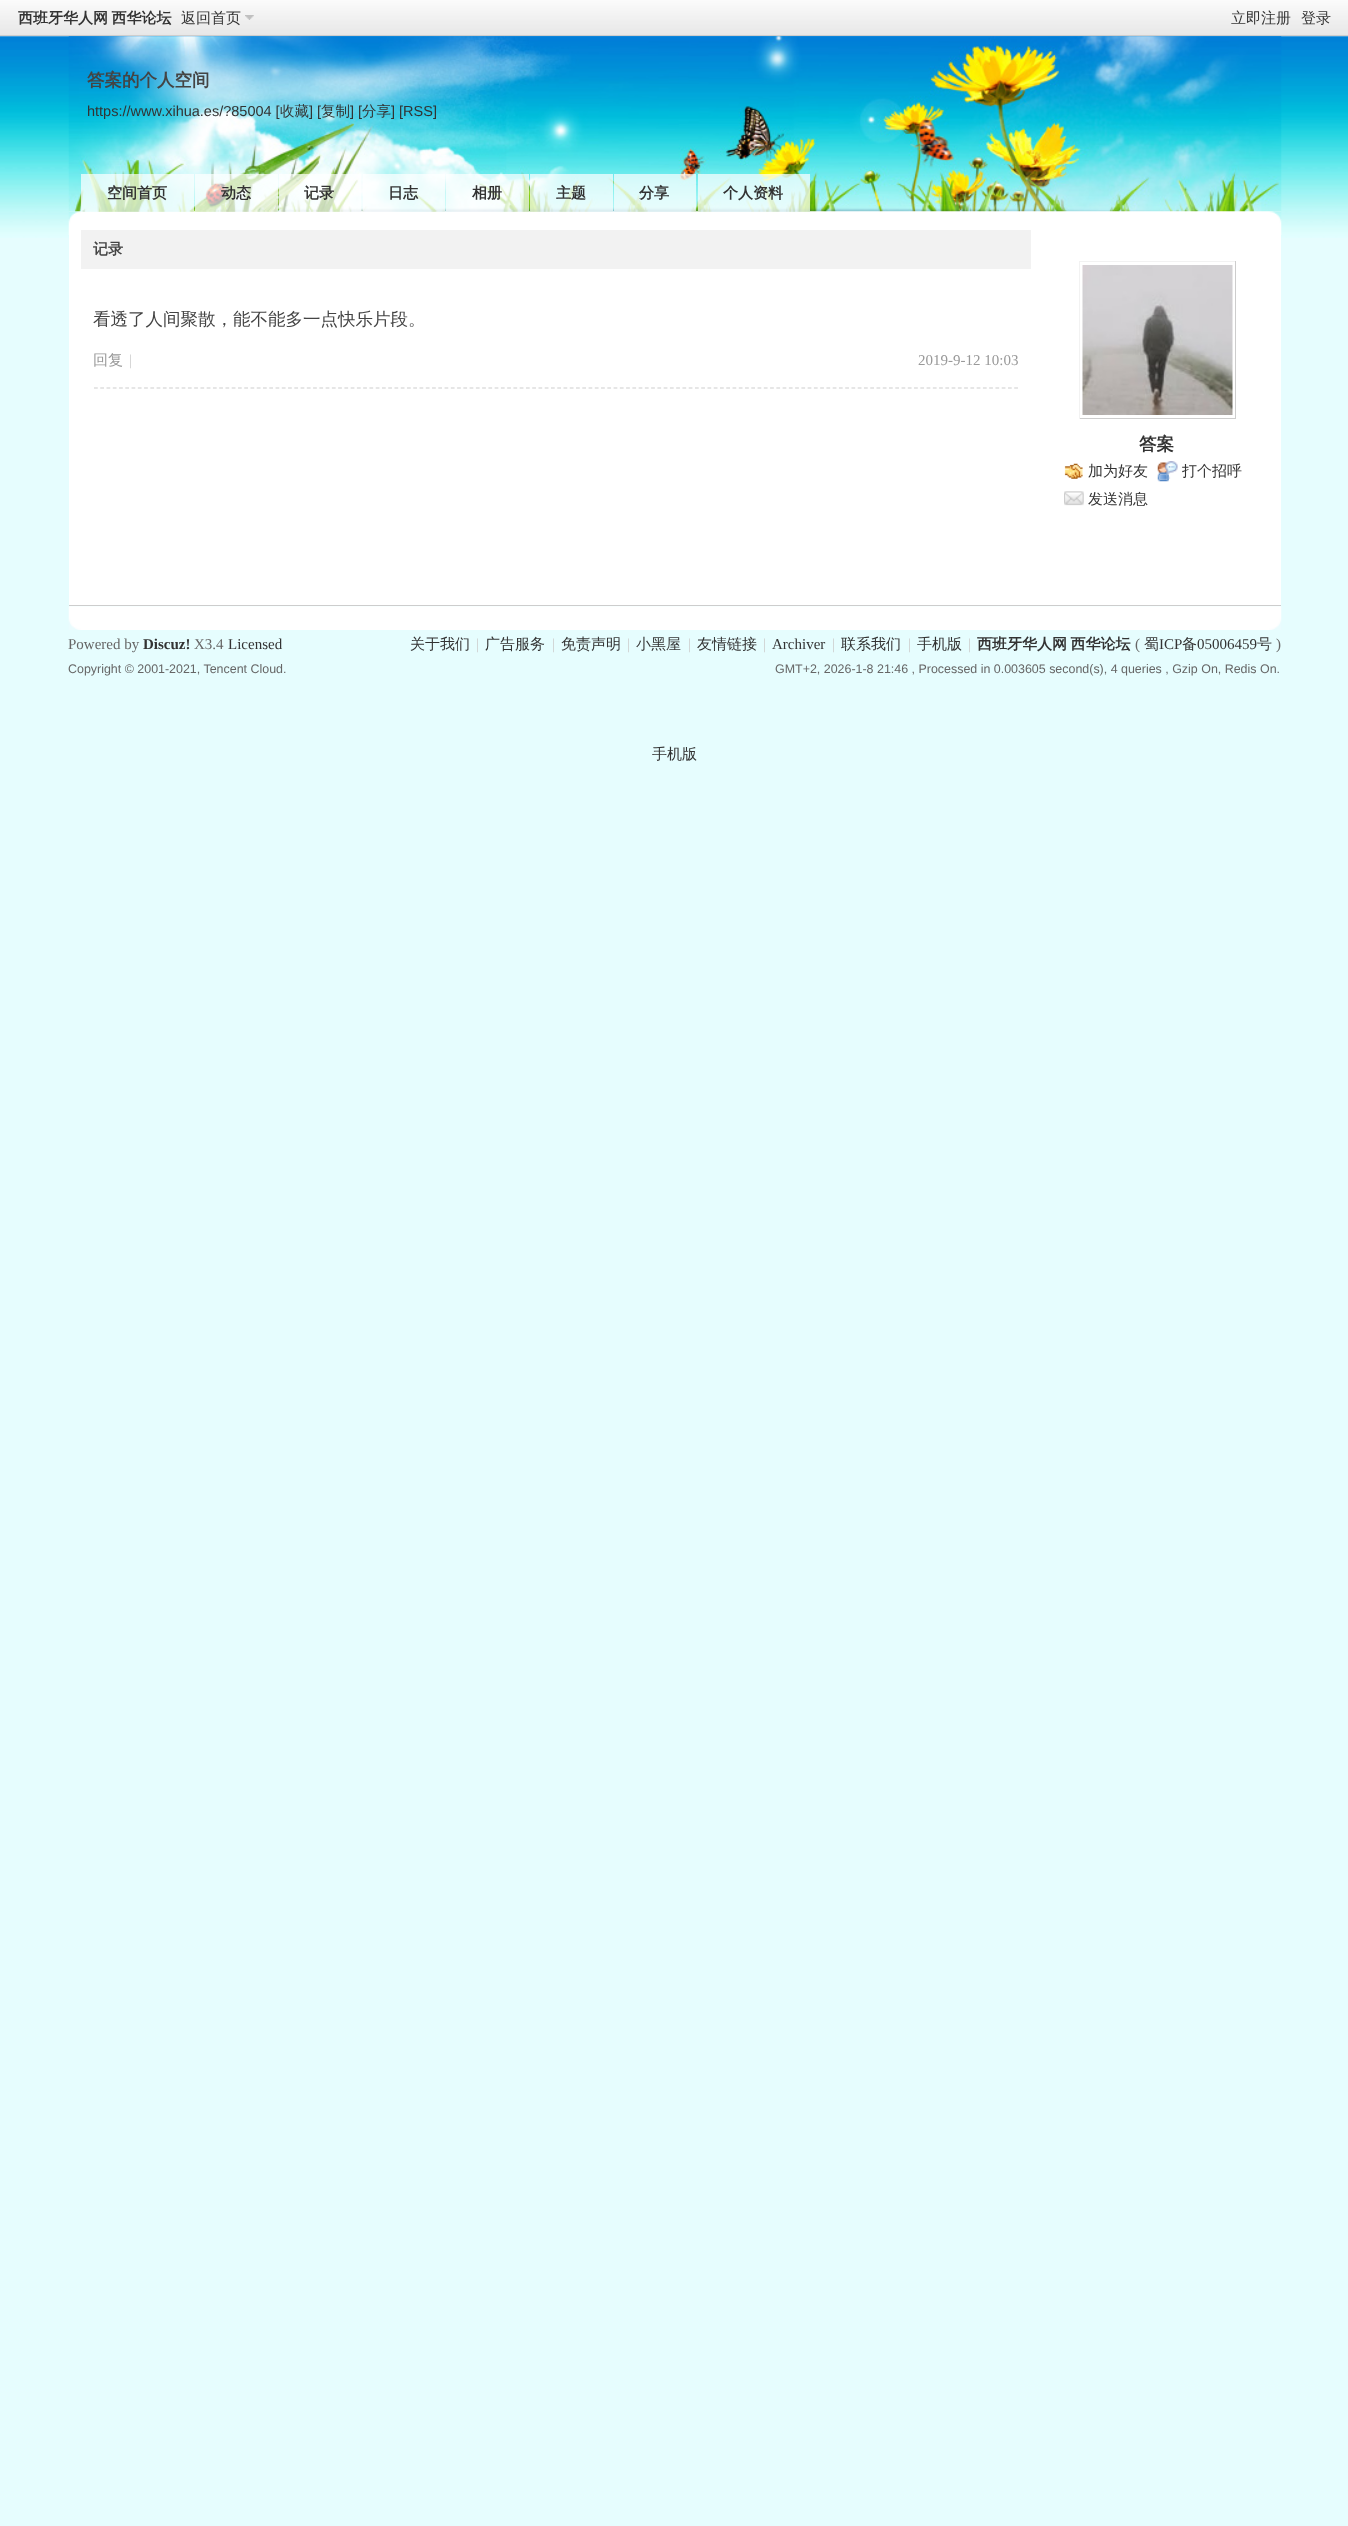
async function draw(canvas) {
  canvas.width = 1348;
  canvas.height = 2526;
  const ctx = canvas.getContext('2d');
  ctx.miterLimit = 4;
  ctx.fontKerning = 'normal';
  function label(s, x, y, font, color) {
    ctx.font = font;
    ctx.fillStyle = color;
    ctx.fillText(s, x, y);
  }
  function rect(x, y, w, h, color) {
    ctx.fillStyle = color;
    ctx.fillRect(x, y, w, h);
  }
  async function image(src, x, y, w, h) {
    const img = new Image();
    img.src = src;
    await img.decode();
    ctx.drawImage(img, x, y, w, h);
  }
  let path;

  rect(0, 0, 1348, 2526, '#e6fdfe');
  await image('assets/img1.png', 0, 36, 1348, 202);
  await image('assets/img2.png', 0, 0, 1348, 37);
  rect(0, 35, 1348, 1, '#cdcdcd');
  ctx.wordSpacing = '-1px';
  label('西班牙华人网 西华论坛', 18, 23, 'bold 15px WenQuanYi Zen Hei', '#333');
  await image('assets/img3.png', 245, 15, 9, 5);
  ctx.wordSpacing = '0px';
  label('返回首页', 181, 23, '500 15px WenQuanYi Zen Hei', '#333');
  label('立即注册', 1231, 23, '500 15px WenQuanYi Zen Hei', '#333');
  label('登录', 1301, 23, '500 15px WenQuanYi Zen Hei', '#333');
  rect(69, 211, 1212, 394, '#fff');
  await image('assets/img5.png', 68, 211, 1214, 24);
  await image('assets/img4.png', 68, 36, 1214, 176);
  label('答案的个人空间', 87, 86, 'bold 17.5px WenQuanYi Zen Hei', '#444');
  label('https://www.xihua.es/?85004 [', 87, 116, '14.5px Liberation Sans', '#333');
  label('收藏', 280, 116, '500 14.5px WenQuanYi Zen Hei', '#333');
  label('] [', 309, 116, '14.5px Liberation Sans', '#333');
  label('复制', 321, 116, '500 14.5px WenQuanYi Zen Hei', '#333');
  label('] [', 350, 116, '14.5px Liberation Sans', '#333');
  label('分享', 362, 116, '500 14.5px WenQuanYi Zen Hei', '#333');
  label('] [RSS]', 391, 116, '14.5px Liberation Sans', '#333');
  rect(81, 174, 113, 37, '#ffffffb3');
  label('空间首页', 107, 198, 'bold 15px WenQuanYi Zen Hei', '#333');
  rect(195, 174, 83, 37, '#ffffffb3');
  label('动态', 221, 198, 'bold 15px WenQuanYi Zen Hei', '#333');
  rect(279, 174, 82, 37, '#ffffffb3');
  label('记录', 304, 198, 'bold 15px WenQuanYi Zen Hei', '#333');
  rect(363, 174, 82, 37, '#ffffffb3');
  label('日志', 388, 198, 'bold 15px WenQuanYi Zen Hei', '#333');
  rect(446, 174, 83, 37, '#ffffffb3');
  label('相册', 472, 198, 'bold 15px WenQuanYi Zen Hei', '#333');
  rect(530, 174, 83, 37, '#ffffffb3');
  label('主题', 556, 198, 'bold 15px WenQuanYi Zen Hei', '#333');
  rect(614, 174, 82, 37, '#ffffffb3');
  label('分享', 639, 198, 'bold 15px WenQuanYi Zen Hei', '#333');
  rect(698, 174, 112, 37, '#ffffffb3');
  label('个人资料', 723, 198, 'bold 15px WenQuanYi Zen Hei', '#333');
  rect(81, 230, 950, 39, '#f2f2f2');
  label('记录', 93, 254, 'bold 15px WenQuanYi Zen Hei', '#444');
  path = new Path2D('M94 388H1019');
  ctx.strokeStyle = '#cdcdcd';
  ctx.lineWidth = 1.2;
  ctx.setLineDash([3.75, 2.51]);
  ctx.stroke(path);
  label('看透了人间聚散，能不能多一点快乐片段。', 93, 325, '500 17.5px WenQuanYi Zen Hei', '#444');
  label('回复', 93, 365, '500 15px WenQuanYi Zen Hei', '#999');
  label('|', 129, 365, '15px Liberation Serif', '#ccc');
  label('2019-9-12 10:03', 918, 365, '15px Liberation Serif', '#999');
  rect(1079, 261, 157, 1, '#f2f2f2');
  rect(1235, 261, 1, 158, '#cdcdcd');
  rect(1079, 418, 157, 1, '#cdcdcd');
  rect(1079, 261, 1, 158, '#f2f2f2');
  await image('assets/img6.png', 1082, 265, 151, 150);
  label('答案', 1139, 450, 'bold 17.5px WenQuanYi Zen Hei', '#333');
  await image('assets/img7.png', 1064, 463, 19, 16);
  label('加为好友', 1088, 476, '500 15px WenQuanYi Zen Hei', '#333');
  await image('assets/img8.png', 1157, 461, 21, 21);
  label('打个招呼', 1182, 476, '500 15px WenQuanYi Zen Hei', '#333');
  await image('assets/img9.png', 1064, 491, 20, 15);
  label('发送消息', 1088, 504, '500 15px WenQuanYi Zen Hei', '#333');
  await image('assets/img10.png', 68, 606, 1214, 24);
  rect(69, 605, 1212, 1, '#cdcdcd');
  label('Powered by', 68, 649, '15px Liberation Serif', '#666');
  label('Discuz!', 143, 649, 'bold 15px Liberation Serif', '#333');
  label('X3.4', 194, 649, '15px Liberation Serif', '#666');
  label('Licensed', 228, 649, '15px Liberation Serif', '#333');
  label('Copyright © 2001-2021, Tencent Cloud.', 68, 673, '12.45px Liberation Sans', '#666');
  label('关于我们', 410, 649, '500 15px WenQuanYi Zen Hei', '#333');
  label('|', 476, 649, '15px Liberation Serif', '#ccc');
  label('广告服务', 485, 649, '500 15px WenQuanYi Zen Hei', '#333');
  label('|', 552, 649, '15px Liberation Serif', '#ccc');
  label('免责声明', 561, 649, '500 15px WenQuanYi Zen Hei', '#333');
  label('|', 627, 649, '15px Liberation Serif', '#ccc');
  label('小黑屋', 636, 649, '500 15px WenQuanYi Zen Hei', '#333');
  label('|', 688, 649, '15px Liberation Serif', '#ccc');
  label('友情链接', 697, 649, '500 15px WenQuanYi Zen Hei', '#333');
  label('|', 763, 649, '15px Liberation Serif', '#ccc');
  label('Archiver', 772, 649, '15px Liberation Serif', '#333');
  label('|', 832, 649, '15px Liberation Serif', '#ccc');
  label('联系我们', 841, 649, '500 15px WenQuanYi Zen Hei', '#333');
  label('|', 908, 649, '15px Liberation Serif', '#ccc');
  label('手机版', 917, 649, '500 15px WenQuanYi Zen Hei', '#333');
  label('|', 968, 649, '15px Liberation Serif', '#ccc');
  ctx.wordSpacing = '-1px';
  label('西班牙华人网 西华论坛', 977, 649, 'bold 15px WenQuanYi Zen Hei', '#333');
  ctx.wordSpacing = '0px';
  label('(', 1135, 649, '15px Liberation Serif', '#666');
  label('蜀', 1144, 649, '500 15px WenQuanYi Zen Hei', '#333');
  label('ICP', 1159, 649, '15px Liberation Serif', '#333');
  label('备', 1182, 649, '500 15px WenQuanYi Zen Hei', '#333');
  label('05006459', 1197, 649, '15px Liberation Serif', '#333');
  label('号', 1257, 649, '500 15px WenQuanYi Zen Hei', '#333');
  label(')', 1276, 649, '15px Liberation Serif', '#666');
  label('GMT+2, 2026-1-8 21:46 , Processed in 0.003605 second(s), 4 queries , Gzip On, Redis On.', 775, 673, '12.45px Liberation Sans', '#666');
  label('手机版', 652, 759, '500 15px WenQuanYi Zen Hei', '#333');
}

draw(document.querySelector('canvas'));
